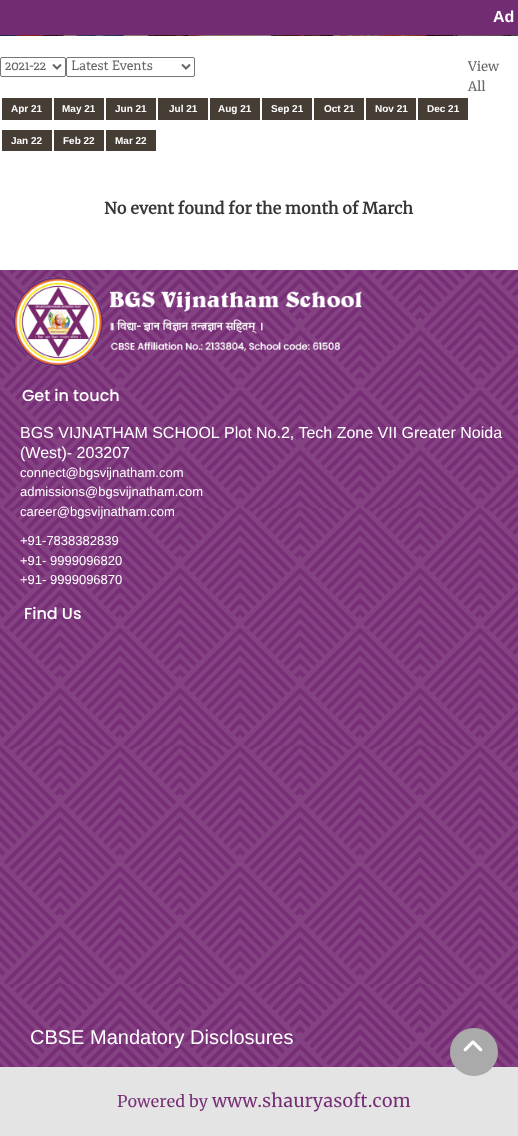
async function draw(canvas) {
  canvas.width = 518;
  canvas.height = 1136;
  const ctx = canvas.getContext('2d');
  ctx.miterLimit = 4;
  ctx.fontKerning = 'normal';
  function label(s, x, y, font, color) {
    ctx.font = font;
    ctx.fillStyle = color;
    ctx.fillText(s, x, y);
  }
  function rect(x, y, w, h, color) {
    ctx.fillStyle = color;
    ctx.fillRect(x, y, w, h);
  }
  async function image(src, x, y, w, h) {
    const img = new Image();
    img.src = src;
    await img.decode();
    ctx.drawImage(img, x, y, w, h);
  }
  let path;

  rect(0, 0, 518, 1136, '#fff');
  rect(0, 0, 518, 35, '#722c71');
  label('Ad', 493, 22, 'bold 16px Liberation Sans', '#fff');
  await image('assets/img1.png', 0, 35, 518, 1);
  ctx.beginPath();
  ctx.roundRect(66.5, 57.5, 128, 19, 1.5);
  ctx.strokeStyle = '#767676';
  ctx.stroke();
  path = new Path2D('M182 64.5L186 68.5L190 64.5');
  ctx.strokeStyle = '#666';
  ctx.lineWidth = 2;
  ctx.stroke(path);
  label('Latest Events', 71, 70, '13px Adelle', '#666');
  label('View', 468, 71, '13px Merriweather', '#666');
  label('All', 468, 91, '13px Merriweather', '#666');
  ctx.beginPath();
  ctx.roundRect(0.5, 57.5, 65, 19, 1.5);
  ctx.strokeStyle = '#767676';
  ctx.lineWidth = 1;
  ctx.stroke();
  path = new Path2D('M53 64.5L57 68.5L61 64.5');
  ctx.strokeStyle = '#666';
  ctx.lineWidth = 2;
  ctx.stroke(path);
  label('2021-22', 5, 70, '13px Adelle', '#666');
  rect(2, 98, 50, 22, '#463d35');
  label('Apr 21', 11, 112, 'bold 10px Liberation Sans', '#fff');
  rect(54, 98, 50, 22, '#463d35');
  label('May 21', 62, 112, 'bold 10px Liberation Sans', '#fff');
  rect(106, 98, 50, 22, '#463d35');
  label('Jun 21', 115, 112, 'bold 10px Liberation Sans', '#fff');
  rect(158, 98, 50, 22, '#463d35');
  label('Jul 21', 169, 112, 'bold 10px Liberation Sans', '#fff');
  rect(210, 98, 50, 22, '#463d35');
  label('Aug 21', 218, 112, 'bold 10px Liberation Sans', '#fff');
  rect(262, 98, 50, 22, '#463d35');
  label('Sep 21', 271, 112, 'bold 10px Liberation Sans', '#fff');
  rect(314, 98, 50, 22, '#463d35');
  label('Oct 21', 324, 112, 'bold 10px Liberation Sans', '#fff');
  rect(366, 98, 50, 22, '#463d35');
  label('Nov 21', 375, 112, 'bold 10px Liberation Sans', '#fff');
  rect(418, 98, 50, 22, '#463d35');
  label('Dec 21', 427, 112, 'bold 10px Liberation Sans', '#fff');
  rect(2, 130, 50, 21, '#463d35');
  label('Jan 22', 11, 144, 'bold 10px Liberation Sans', '#fff');
  rect(54, 130, 50, 21, '#463d35');
  label('Feb 22', 63, 144, 'bold 10px Liberation Sans', '#fff');
  rect(106, 130, 50, 21, '#463d35');
  label('Mar 22', 115, 144, 'bold 10px Liberation Sans', '#fff');
  label('No event found for the month of March', 104, 214, 'bold 16px Merriweather', '#373636');
  rect(0, 270, 518, 797, '#772e76');
  await image('assets/img2.png', 0, 270, 518, 797);
  await image('assets/img3.png', 13, 277, 349, 90);
  label('Get in touch', 22, 401, '500 16px Poppins', '#fff');
  label('BGS VIJNATHAM SCHOOL', 20, 438, '16px Liberation Sans', '#fff');
  label('Plot No.2, Tech Zone VII Greater Noida', 224, 438, '16px Liberation Sans', '#fff');
  label('(West)- 203207', 20, 458, '16px Liberation Sans', '#fff');
  label('connect@bgsvijnatham.com', 20, 477, '13px Liberation Sans', '#fff');
  label('admissions@bgsvijnatham.com', 20, 496, '13px Liberation Sans', '#fff');
  label('career@bgsvijnatham.com', 20, 516, '13px Liberation Sans', '#fff');
  label('+91-7838382839', 20, 545, '13px Liberation Sans', '#fff');
  label('+91- 9999096820', 20, 565, '13px Liberation Sans', '#fff');
  label('+91- 9999096870', 20, 584, '13px Liberation Sans', '#fff');
  label('Find Us', 24, 619, '500 16px Poppins', '#fff');
  label('CBSE Mandatory Disclosures', 30, 1044, '20px Liberation Sans', '#fff');
  rect(0, 1067, 518, 69, '#e4e4e4');
  label('Powered by', 117, 1107, '16px Merriweather', '#772e76');
  label('www.shauryasoft.com', 212, 1107, '18px Merriweather', '#772e76');
  ctx.fillStyle = '#aaa';
  ctx.beginPath();
  ctx.arc(474, 1052, 24, 0, 2 * Math.PI);
  ctx.fill();
  await image('assets/img4.png', 463, 1040, 20, 12);
}

draw(document.querySelector('canvas'));
